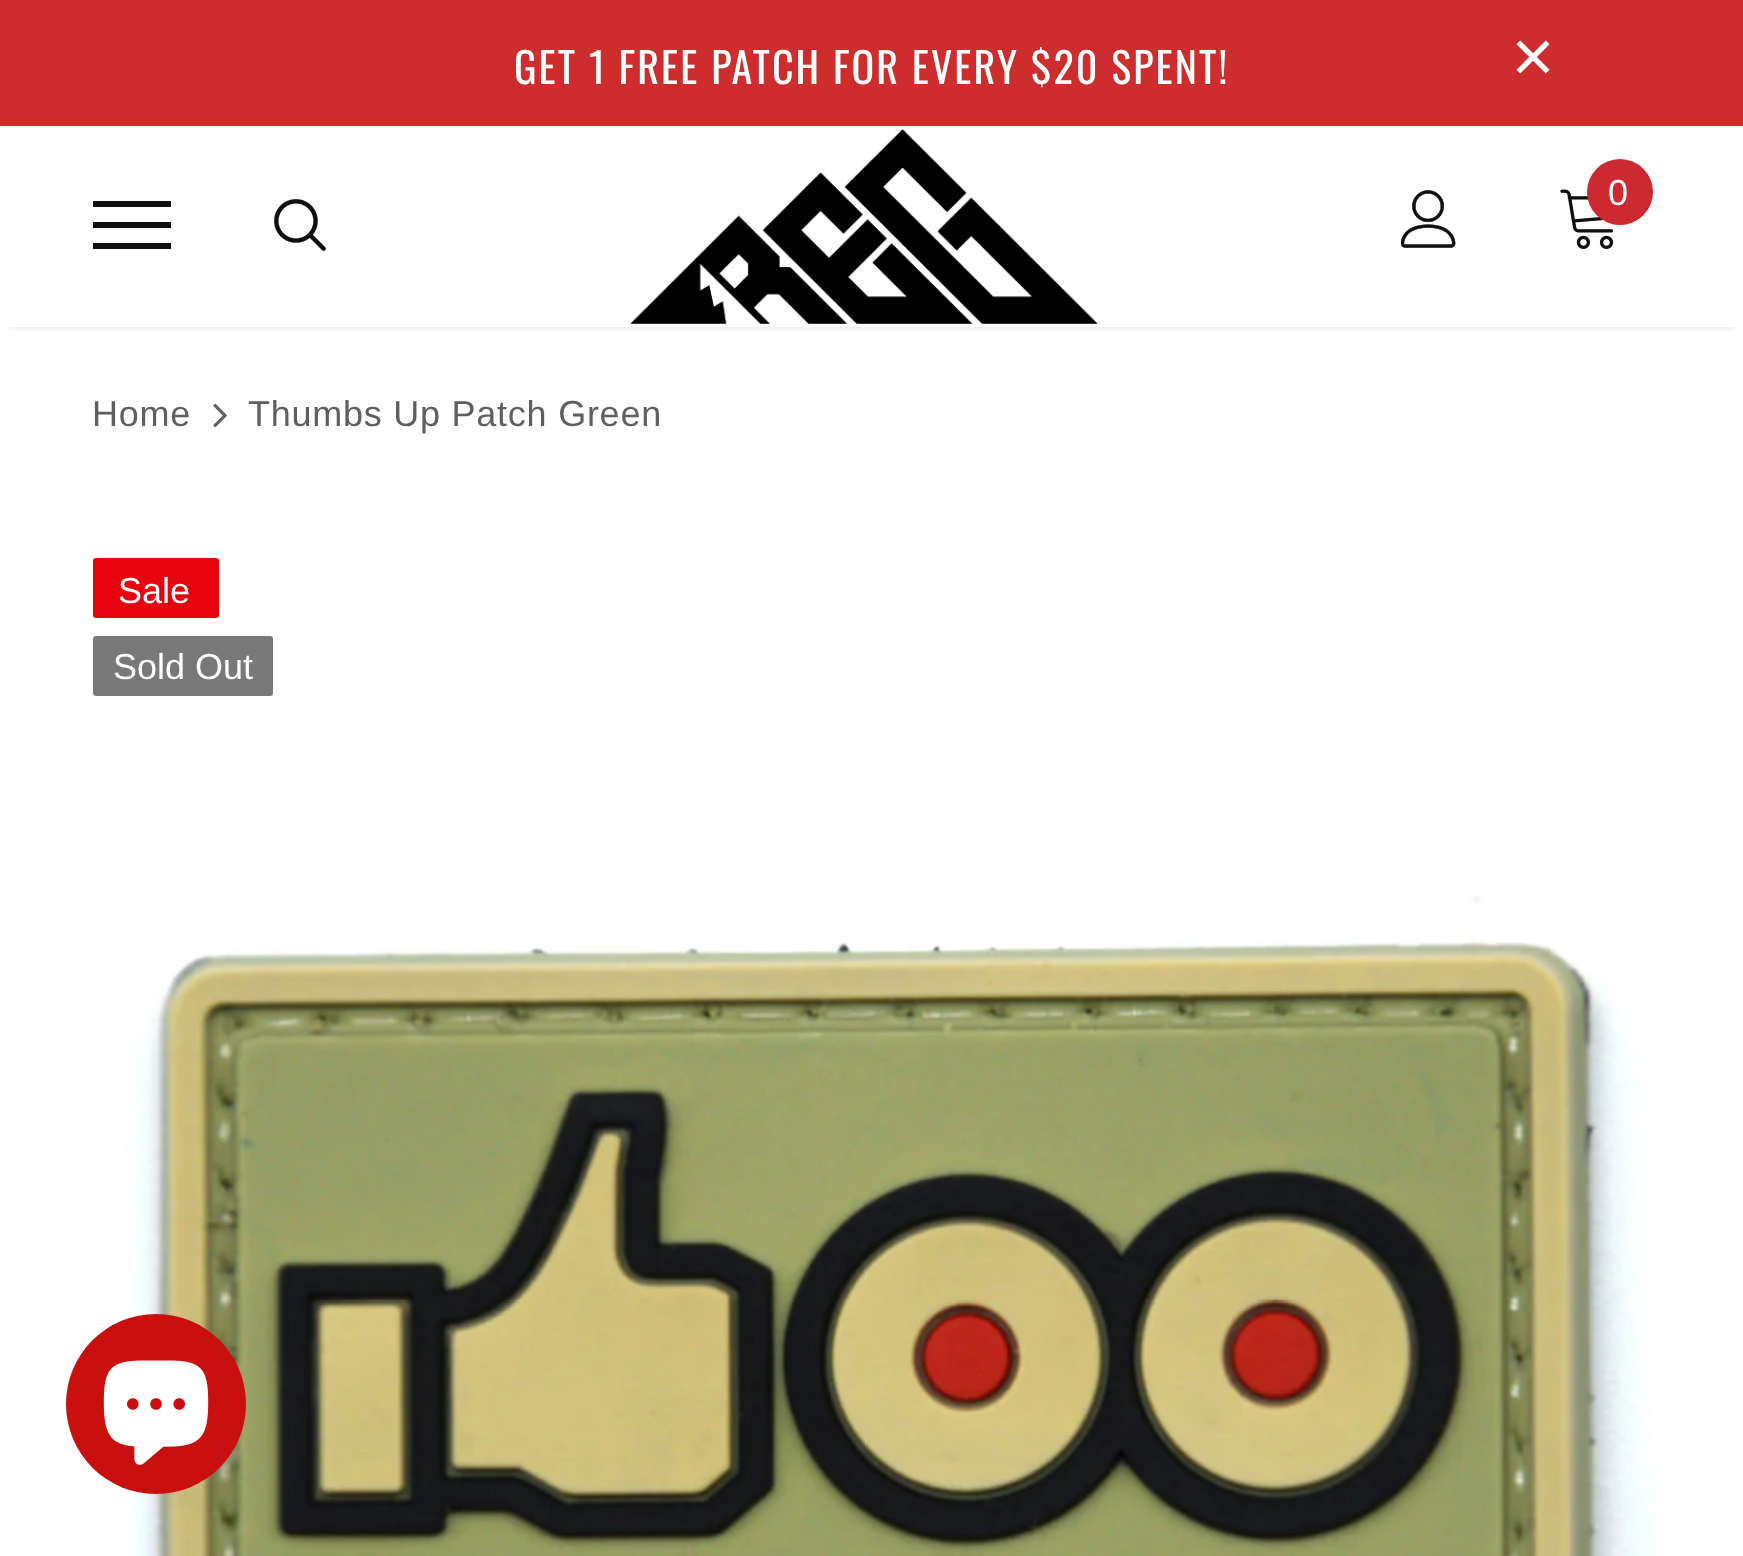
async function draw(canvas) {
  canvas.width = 1743;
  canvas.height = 1556;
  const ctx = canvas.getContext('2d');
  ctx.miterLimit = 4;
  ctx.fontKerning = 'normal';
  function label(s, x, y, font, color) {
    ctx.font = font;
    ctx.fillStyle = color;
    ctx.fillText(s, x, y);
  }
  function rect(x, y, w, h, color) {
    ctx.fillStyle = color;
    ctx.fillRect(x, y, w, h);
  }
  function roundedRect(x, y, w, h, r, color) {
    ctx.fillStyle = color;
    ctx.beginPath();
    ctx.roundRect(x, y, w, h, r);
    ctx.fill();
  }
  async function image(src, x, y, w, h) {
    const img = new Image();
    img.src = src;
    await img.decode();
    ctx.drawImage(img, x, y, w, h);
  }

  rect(0, 0, 1743, 1556, '#fff');
  rect(0, 0, 1743, 126, '#ce2d2d');
  ctx.letterSpacing = '2.1px';
  label('GET 1 FREE PATCH FOR EVERY $20 SPENT!', 514, 84, '42px Oswald', '#fcfdfd');
  await image('assets/img1.png', 1516, 40, 34, 34);
  ctx.save();
  ctx.beginPath();
  ctx.rect(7, 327, 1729, 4);
  ctx.clip();
  ctx.fillStyle = '#0000001f';
  ctx.filter = 'blur(4.5px)';
  ctx.beginPath();
  ctx.rect(9, 144, 1725, 183);
  ctx.fill();
  ctx.filter = 'none';
  ctx.restore();
  await image('assets/img2.png', 630, 129, 468, 195);
  await image('assets/img3.png', 1401, 190, 55, 58);
  await image('assets/img4.png', 1560, 189, 54, 60);
  ctx.fillStyle = '#cd2931';
  ctx.beginPath();
  ctx.arc(1620, 192, 33, 0, 2 * Math.PI);
  ctx.fill();
  ctx.letterSpacing = '0.75px';
  label('0', 1608, 205, '36px Arimo', '#fcfdfd');
  rect(93, 222, 78, 6, '#0f0f0f');
  rect(93, 201, 78, 6, '#0f0f0f');
  rect(93, 243, 78, 6, '#0f0f0f');
  await image('assets/img5.png', 274, 199, 52, 52);
  label('Home', 92, 426, '36px Arimo', '#5f5f5f');
  await image('assets/img6.png', 213, 403, 14, 25);
  label('Thumbs Up Patch Green', 248, 426, '36px Arimo', '#5f5f5f');
  roundedRect(93, 558, 126, 60, 3, '#e7040f');
  ctx.letterSpacing = '0px';
  label('Sale', 118, 603, '36px Arimo', '#fcfdfd');
  roundedRect(93, 636, 180, 60, 3, '#787878');
  label('Sold Out', 113, 679, '36px Arimo', '#fcfdfd');
  await image('assets/img7.png', 123, 895, 1530, 661);
  ctx.fillStyle = '#ca0f0f';
  ctx.beginPath();
  ctx.arc(156, 1404, 90, 0, 2 * Math.PI);
  ctx.fill();
  await image('assets/img8.png', 103, 1360, 106, 105);
}

draw(document.querySelector('canvas'));
